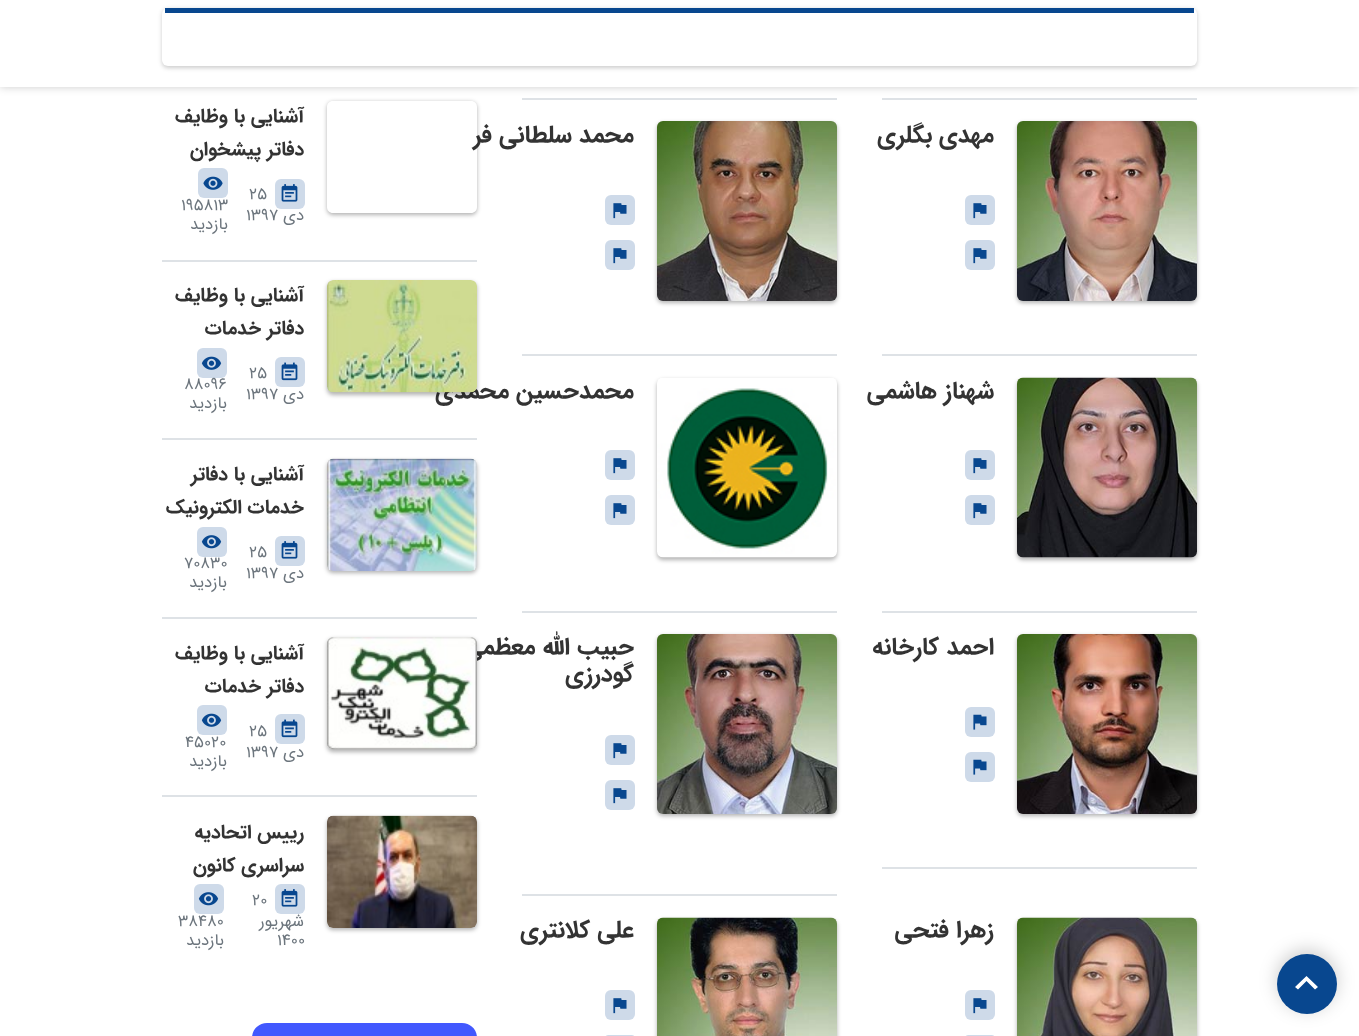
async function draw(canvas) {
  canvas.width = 1359;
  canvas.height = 1036;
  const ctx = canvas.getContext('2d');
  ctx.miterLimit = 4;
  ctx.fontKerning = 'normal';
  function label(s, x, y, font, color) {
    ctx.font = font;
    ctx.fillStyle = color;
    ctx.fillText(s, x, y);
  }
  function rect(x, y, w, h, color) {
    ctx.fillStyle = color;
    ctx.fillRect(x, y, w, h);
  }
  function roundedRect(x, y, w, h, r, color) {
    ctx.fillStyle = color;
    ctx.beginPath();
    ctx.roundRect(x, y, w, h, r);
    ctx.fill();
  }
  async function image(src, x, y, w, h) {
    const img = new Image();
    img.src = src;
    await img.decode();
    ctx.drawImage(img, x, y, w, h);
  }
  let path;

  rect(0, 0, 1359, 1036, '#fff');
  rect(882, 98, 315, 2, '#dee2e6');
  rect(522, 98, 315, 2, '#dee2e6');
  ctx.fillStyle = '#00000033';
  ctx.filter = 'blur(4px)';
  ctx.beginPath();
  ctx.rect(0, 0, 1359, 87);
  ctx.fill();
  ctx.filter = 'none';
  rect(0, 0, 1359, 87, '#fff');
  ctx.fillStyle = '#00000033';
  ctx.filter = 'blur(2px)';
  ctx.beginPath();
  ctx.roundRect(162, 9, 1035, 59, 6);
  ctx.fill();
  ctx.filter = 'none';
  roundedRect(162, 8, 1035, 58, 6, '#fff');
  rect(165, 8, 1029, 5, '#08478f');
  rect(882, 354, 315, 2, '#dee2e6');
  ctx.fillStyle = '#0000004d';
  ctx.filter = 'blur(2px)';
  ctx.beginPath();
  ctx.roundRect(1017, 123, 180, 180, 6);
  ctx.fill();
  ctx.filter = 'none';
  await image('assets/img1.png', 1017, 121, 180, 180);
  ctx.direction = 'rtl';
  label('مهدی بگلری', 994, 142, 'bold 24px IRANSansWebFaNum', '#333');
  roundedRect(965, 195, 30, 30, 6, '#cedae9');
  await image('assets/img2.png', 973, 203, 14, 16);
  roundedRect(965, 240, 30, 30, 6, '#cedae9');
  await image('assets/img2.png', 973, 248, 14, 16);
  rect(522, 354, 315, 2, '#dee2e6');
  ctx.fillStyle = '#0000004d';
  ctx.filter = 'blur(2px)';
  ctx.beginPath();
  ctx.roundRect(657, 123, 180, 180, 6);
  ctx.fill();
  ctx.filter = 'none';
  await image('assets/img3.png', 657, 121, 180, 180);
  label('محمد سلطانی فر', 634, 142, 'bold 24px IRANSansWebFaNum', '#333');
  roundedRect(605, 195, 30, 30, 6, '#cedae9');
  await image('assets/img2.png', 613, 203, 14, 16);
  roundedRect(605, 240, 30, 30, 6, '#cedae9');
  await image('assets/img2.png', 613, 248, 14, 16);
  rect(882, 611, 315, 2, '#dee2e6');
  ctx.fillStyle = '#0000004d';
  ctx.filter = 'blur(2px)';
  ctx.beginPath();
  ctx.roundRect(1017, 380, 180, 180, 6);
  ctx.fill();
  ctx.filter = 'none';
  await image('assets/img4.png', 1017, 377, 180, 181);
  label('شهناز هاشمی', 994, 398, 'bold 24px IRANSansWebFaNum', '#333');
  roundedRect(965, 450, 30, 30, 6, '#cedae9');
  await image('assets/img2.png', 973, 458, 14, 16);
  roundedRect(965, 495, 30, 30, 6, '#cedae9');
  await image('assets/img2.png', 973, 503, 14, 16);
  rect(522, 611, 315, 2, '#dee2e6');
  ctx.fillStyle = '#0000004d';
  ctx.filter = 'blur(2px)';
  ctx.beginPath();
  ctx.roundRect(657, 380, 180, 180, 6);
  ctx.fill();
  ctx.filter = 'none';
  await image('assets/img5.png', 657, 378, 180, 180);
  label('محمدحسین محمدی', 634, 398, 'bold 24px IRANSansWebFaNum', '#333');
  roundedRect(605, 450, 30, 30, 6, '#cedae9');
  await image('assets/img2.png', 613, 458, 14, 16);
  roundedRect(605, 495, 30, 30, 6, '#cedae9');
  await image('assets/img2.png', 613, 503, 14, 16);
  rect(882, 867, 315, 2, '#dee2e6');
  ctx.fillStyle = '#0000004d';
  ctx.filter = 'blur(2px)';
  ctx.beginPath();
  ctx.roundRect(1017, 636, 180, 180, 6);
  ctx.fill();
  ctx.filter = 'none';
  await image('assets/img6.png', 1017, 634, 180, 180);
  label('احمد کارخانه', 994, 654, 'bold 24px IRANSansWebFaNum', '#333');
  roundedRect(965, 707, 30, 30, 6, '#cedae9');
  await image('assets/img7.png', 973, 714, 14, 16);
  roundedRect(965, 752, 30, 30, 6, '#cedae9');
  await image('assets/img7.png', 973, 759, 14, 16);
  rect(522, 894, 315, 2, '#dee2e6');
  ctx.fillStyle = '#0000004d';
  ctx.filter = 'blur(2px)';
  ctx.beginPath();
  ctx.roundRect(657, 636, 180, 180, 6);
  ctx.fill();
  ctx.filter = 'none';
  await image('assets/img8.png', 657, 634, 180, 180);
  label('حبیب الله معظمی', 634, 654, 'bold 24px IRANSansWebFaNum', '#333');
  label('گودرزی', 634, 681, 'bold 24px IRANSansWebFaNum', '#333');
  roundedRect(605, 735, 30, 30, 6, '#cedae9');
  await image('assets/img2.png', 613, 743, 14, 16);
  roundedRect(605, 780, 30, 30, 6, '#cedae9');
  await image('assets/img2.png', 613, 788, 14, 16);
  ctx.fillStyle = '#0000004d';
  ctx.filter = 'blur(2px)';
  ctx.beginPath();
  ctx.roundRect(1017, 920, 180, 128, 6);
  ctx.fill();
  ctx.filter = 'none';
  await image('assets/img9.png', 1017, 917, 180, 119);
  label('زهرا فتحی', 994, 937, 'bold 24px IRANSansWebFaNum', '#333');
  roundedRect(965, 990, 30, 30, 6, '#cedae9');
  await image('assets/img2.png', 973, 998, 14, 16);
  roundedRect(965, 1035, 30, 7, 6, '#cedae9');
  ctx.fillStyle = '#0000004d';
  ctx.filter = 'blur(2px)';
  ctx.beginPath();
  ctx.roundRect(657, 920, 180, 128, 6);
  ctx.fill();
  ctx.filter = 'none';
  await image('assets/img10.png', 657, 917, 180, 119);
  label('علی کلانتری', 634, 937, 'bold 24px IRANSansWebFaNum', '#333');
  roundedRect(605, 990, 30, 30, 6, '#cedae9');
  await image('assets/img2.png', 613, 998, 14, 16);
  roundedRect(605, 1035, 30, 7, 6, '#cedae9');
  rect(162, 260, 315, 2, '#dee2e6');
  ctx.save();
  path = new Path2D('M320 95H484V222H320ZM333 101H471C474.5 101 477 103.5 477 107V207C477 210.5 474.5 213 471 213H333C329.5 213 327 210.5 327 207V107C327 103.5 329.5 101 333 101Z');
  ctx.clip(path, 'evenodd');
  ctx.fillStyle = '#0000004d';
  ctx.filter = 'blur(2px)';
  ctx.beginPath();
  ctx.roundRect(327, 102, 150, 113, 6);
  ctx.fill();
  ctx.filter = 'none';
  ctx.restore();
  label('آشنایی با وظایف', 304, 122, 'bold 19.5px IRANSansWebFaNum', '#333');
  label('دفاتر پیشخوان', 304, 155, 'bold 19.5px IRANSansWebFaNum', '#333');
  roundedRect(275, 179, 30, 30, 6, '#cedae9');
  await image('assets/img11.png', 281, 184, 17, 18);
  ctx.direction = 'ltr';
  label('25', 249, 199, '16.5px IRANSansWebFaNum', '#6c757d');
  ctx.direction = 'rtl';
  label('دی', 304, 220, '16.5px IRANSansWebFaNum', '#6c757d');
  ctx.direction = 'ltr';
  label('1397', 246, 220, '16.5px IRANSansWebFaNum', '#6c757d');
  roundedRect(198, 168, 30, 30, 6, '#cedae9');
  await image('assets/img12.png', 203, 176, 20, 14);
  label('195813', 181, 210, '16.5px IRANSansWebFaNum', '#6c757d');
  ctx.direction = 'rtl';
  label('بازدید', 228, 229, '16.5px IRANSansWebFaNum', '#6c757d');
  rect(162, 438, 315, 2, '#dee2e6');
  ctx.fillStyle = '#0000004d';
  ctx.filter = 'blur(2px)';
  ctx.beginPath();
  ctx.roundRect(327, 282, 150, 113, 6);
  ctx.fill();
  ctx.filter = 'none';
  await image('assets/img13.png', 327, 280, 150, 113);
  label('آشنایی با وظایف', 304, 301, 'bold 19.5px IRANSansWebFaNum', '#333');
  label('دفاتر خدمات', 304, 334, 'bold 19.5px IRANSansWebFaNum', '#333');
  roundedRect(275, 357, 30, 30, 6, '#cedae9');
  await image('assets/img14.png', 281, 362, 17, 19);
  ctx.direction = 'ltr';
  label('25', 249, 378, '16.5px IRANSansWebFaNum', '#6c757d');
  ctx.direction = 'rtl';
  label('دی', 304, 399, '16.5px IRANSansWebFaNum', '#6c757d');
  ctx.direction = 'ltr';
  label('1397', 246, 399, '16.5px IRANSansWebFaNum', '#6c757d');
  roundedRect(197, 348, 30, 30, 6, '#cedae9');
  await image('assets/img15.png', 201, 356, 21, 14);
  label('88096', 184, 389, '16.5px IRANSansWebFaNum', '#6c757d');
  ctx.direction = 'rtl';
  label('بازدید', 227, 408, '16.5px IRANSansWebFaNum', '#6c757d');
  rect(162, 617, 315, 2, '#dee2e6');
  ctx.fillStyle = '#0000004d';
  ctx.filter = 'blur(2px)';
  ctx.beginPath();
  ctx.roundRect(327, 461, 150, 112, 6);
  ctx.fill();
  ctx.filter = 'none';
  await image('assets/img16.png', 327, 458, 150, 113);
  label('آشنایی با دفاتر', 304, 480, 'bold 19.5px IRANSansWebFaNum', '#333');
  label('خدمات الکترونیک', 304, 513, 'bold 19.5px IRANSansWebFaNum', '#333');
  roundedRect(275, 536, 30, 30, 6, '#cedae9');
  await image('assets/img11.png', 281, 541, 17, 18);
  ctx.direction = 'ltr';
  label('25', 249, 557, '16.5px IRANSansWebFaNum', '#6c757d');
  ctx.direction = 'rtl';
  label('دی', 304, 578, '16.5px IRANSansWebFaNum', '#6c757d');
  ctx.direction = 'ltr';
  label('1397', 246, 578, '16.5px IRANSansWebFaNum', '#6c757d');
  roundedRect(197, 527, 30, 30, 6, '#cedae9');
  await image('assets/img17.png', 201, 535, 21, 14);
  label('70830', 184, 568, '16.5px IRANSansWebFaNum', '#6c757d');
  ctx.direction = 'rtl';
  label('بازدید', 227, 587, '16.5px IRANSansWebFaNum', '#6c757d');
  rect(162, 795, 315, 2, '#dee2e6');
  ctx.fillStyle = '#0000004d';
  ctx.filter = 'blur(2px)';
  ctx.beginPath();
  ctx.roundRect(327, 639, 150, 113, 6);
  ctx.fill();
  ctx.filter = 'none';
  await image('assets/img18.png', 327, 637, 150, 113);
  label('آشنایی با وظایف', 304, 659, 'bold 19.5px IRANSansWebFaNum', '#333');
  label('دفاتر خدمات', 304, 692, 'bold 19.5px IRANSansWebFaNum', '#333');
  roundedRect(275, 714, 30, 30, 6, '#cedae9');
  await image('assets/img14.png', 281, 719, 17, 19);
  ctx.direction = 'ltr';
  label('25', 249, 736, '16.5px IRANSansWebFaNum', '#6c757d');
  ctx.direction = 'rtl';
  label('دی', 304, 757, '16.5px IRANSansWebFaNum', '#6c757d');
  ctx.direction = 'ltr';
  label('1397', 246, 757, '16.5px IRANSansWebFaNum', '#6c757d');
  roundedRect(197, 705, 30, 30, 6, '#cedae9');
  await image('assets/img15.png', 201, 713, 21, 14);
  label('45020', 185, 747, '16.5px IRANSansWebFaNum', '#6c757d');
  ctx.direction = 'rtl';
  label('بازدید', 227, 766, '16.5px IRANSansWebFaNum', '#6c757d');
  ctx.fillStyle = '#0000004d';
  ctx.filter = 'blur(2px)';
  ctx.beginPath();
  ctx.roundRect(327, 818, 150, 112, 6);
  ctx.fill();
  ctx.filter = 'none';
  await image('assets/img19.png', 327, 815, 150, 113);
  label('رییس اتحادیه', 304, 838, 'bold 19.5px IRANSansWebFaNum', '#333');
  label('سراسری کانون', 304, 871, 'bold 19.5px IRANSansWebFaNum', '#333');
  roundedRect(275, 884, 30, 30, 6, '#cedae9');
  await image('assets/img11.png', 281, 889, 17, 18);
  ctx.direction = 'ltr';
  label('20', 252, 905, '16.5px IRANSansWebFaNum', '#6c757d');
  ctx.direction = 'rtl';
  label('شهریور', 304, 926, '16.5px IRANSansWebFaNum', '#6c757d');
  ctx.direction = 'ltr';
  label('1400', 277, 945, '16.5px IRANSansWebFaNum', '#6c757d');
  roundedRect(194, 884, 30, 30, 6, '#cedae9');
  await image('assets/img17.png', 198, 892, 21, 14);
  label('38480', 178, 926, '16.5px IRANSansWebFaNum', '#6c757d');
  ctx.direction = 'rtl';
  label('بازدید', 224, 945, '16.5px IRANSansWebFaNum', '#6c757d');
  ctx.fillStyle = '#4258fe';
  path = new Path2D('M267 1023H462C470.5 1023 477 1029.5 477 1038V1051H252V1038C252 1029.5 258.5 1023 267 1023Z');
  ctx.fill(path);
  ctx.fillStyle = '#00000033';
  ctx.filter = 'blur(9px)';
  ctx.beginPath();
  ctx.roundRect(1277, 950, 60, 60, 30);
  ctx.fill();
  ctx.filter = 'none';
  ctx.fillStyle = '#08478f';
  ctx.beginPath();
  ctx.arc(1307, 984, 30, 0, 2 * Math.PI);
  ctx.fill();
  ctx.fillStyle = '#fff';
  path = new Path2D('M1298 989.5L1295 987L1306.5 976L1318 987L1315 989.5L1306.5 981Z');
  ctx.fill(path);
}

draw(document.querySelector('canvas'));
